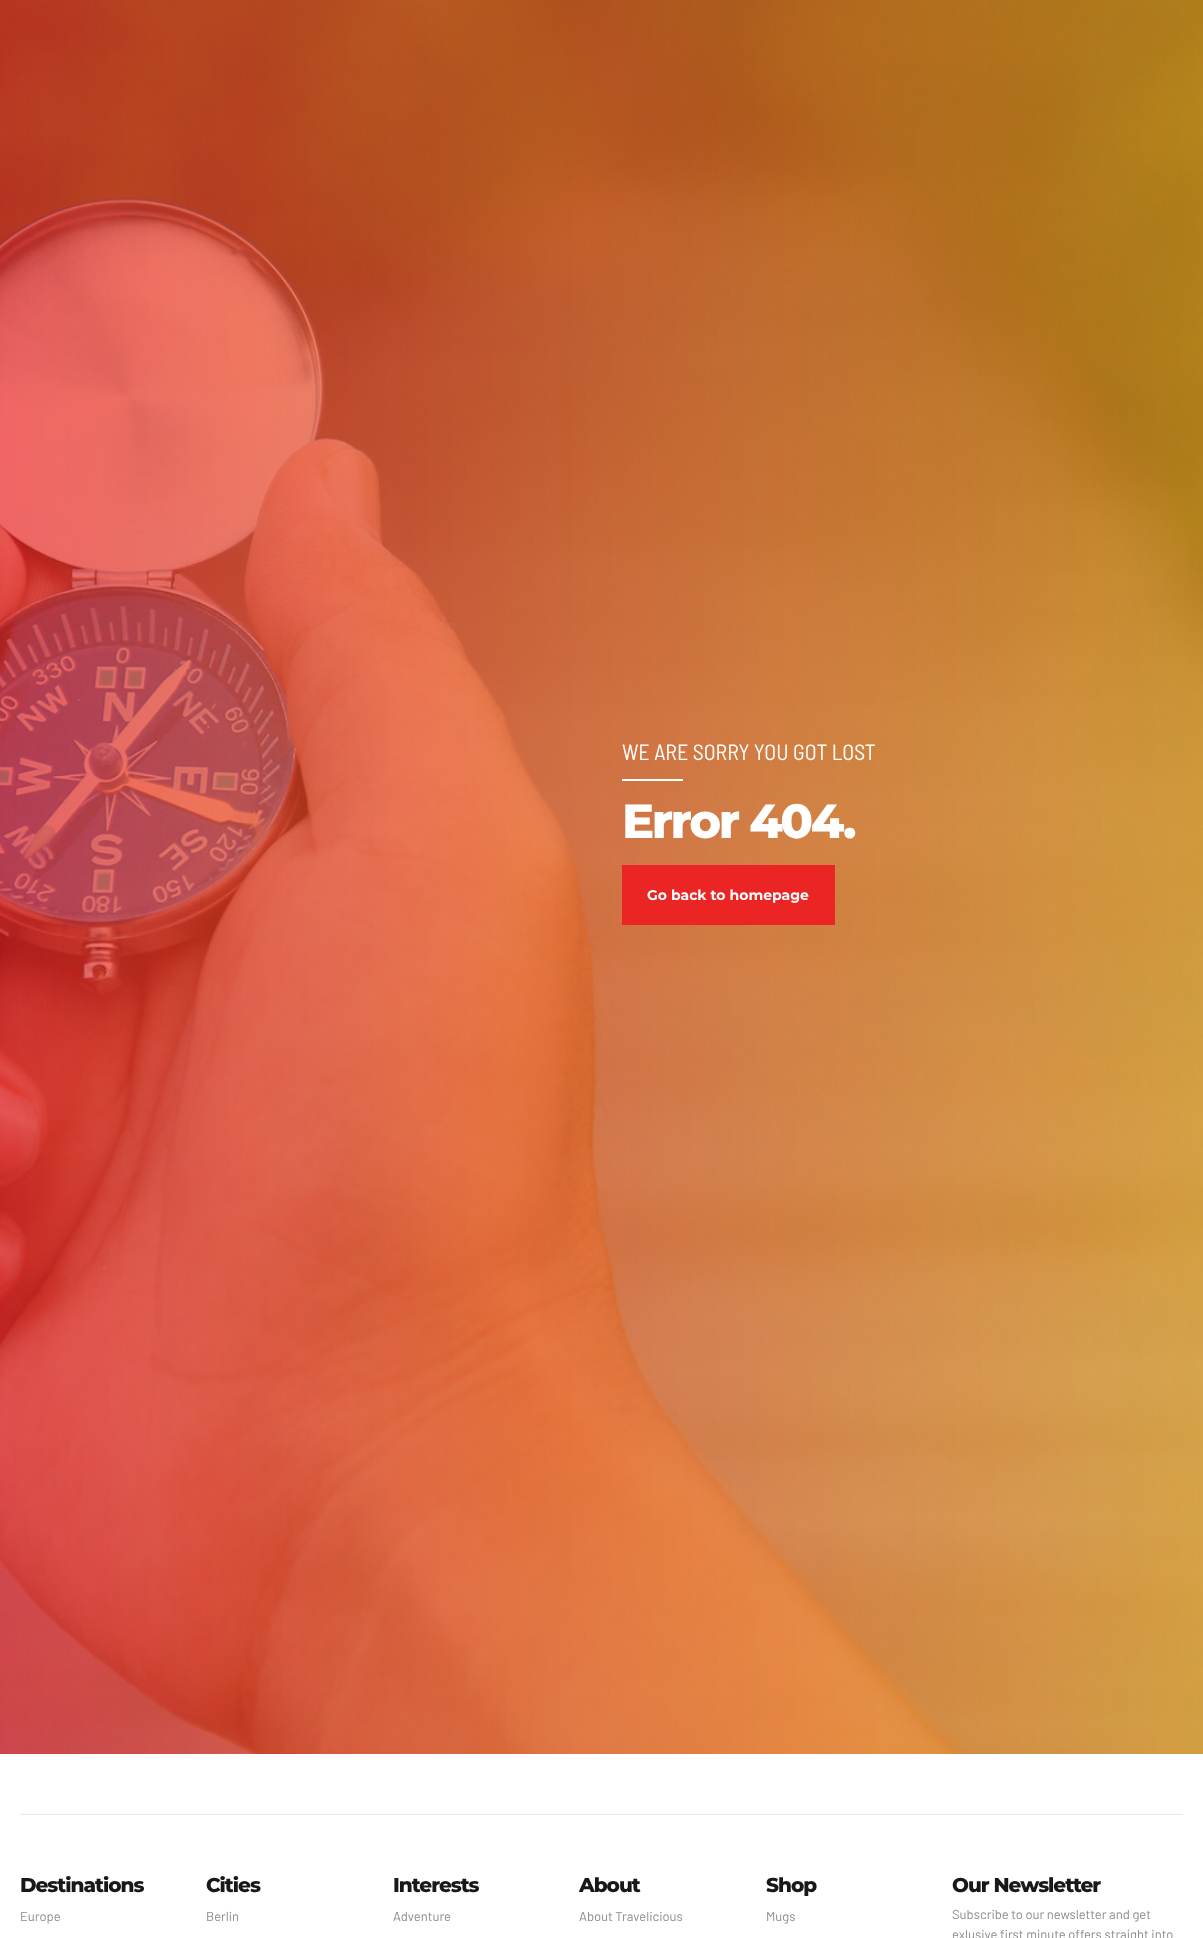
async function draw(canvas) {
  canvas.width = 1203;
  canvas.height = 1938;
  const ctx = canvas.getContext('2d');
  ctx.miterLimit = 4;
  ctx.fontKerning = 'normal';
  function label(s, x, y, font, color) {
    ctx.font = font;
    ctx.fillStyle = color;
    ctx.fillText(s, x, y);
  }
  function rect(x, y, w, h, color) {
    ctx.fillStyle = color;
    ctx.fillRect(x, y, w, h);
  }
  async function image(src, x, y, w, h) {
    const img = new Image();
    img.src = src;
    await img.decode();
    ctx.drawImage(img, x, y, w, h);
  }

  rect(0, 0, 1203, 1938, '#fff');
  await image('assets/img1.png', 0, 0, 1203, 1754);
  label('WE ARE SORRY YOU GOT LOST', 622, 760, '22px Barlow Semi Condensed', '#fff');
  rect(622, 779, 61, 2, '#fff');
  ctx.letterSpacing = '-2.4px';
  label('Error 404.', 622, 838, '800 48px Montserrat', '#fff');
  rect(622, 865, 213, 60, '#eb2424');
  ctx.letterSpacing = '0px';
  label('Go back to homepage', 647, 900, 'bold 14px Montserrat', '#fff');
  rect(20, 1814, 1163, 1, '#e8e8e8');
  ctx.letterSpacing = '-1px';
  label('Destinations', 20, 1892, '800 20px Montserrat', '#181818');
  ctx.letterSpacing = '0px';
  label('Europe', 20, 1921, '13px Barlow', '#8c8c8c');
  ctx.letterSpacing = '-1px';
  label('Cities', 206, 1892, '800 20px Montserrat', '#181818');
  ctx.letterSpacing = '0px';
  label('Berlin', 206, 1921, '13px Barlow', '#8c8c8c');
  ctx.letterSpacing = '-1px';
  label('Interests', 393, 1892, '800 20px Montserrat', '#181818');
  ctx.letterSpacing = '0px';
  label('Adventure', 393, 1921, '13px Barlow', '#8c8c8c');
  ctx.letterSpacing = '-1px';
  label('About', 579, 1892, '800 20px Montserrat', '#181818');
  ctx.letterSpacing = '0px';
  label('About Travelicious', 579, 1921, '13px Barlow', '#8c8c8c');
  ctx.letterSpacing = '-1px';
  label('Shop', 766, 1892, '800 20px Montserrat', '#181818');
  ctx.letterSpacing = '0px';
  label('Mugs', 766, 1921, '13px Barlow', '#8c8c8c');
  ctx.letterSpacing = '-1px';
  label('Our Newsletter', 952, 1892, '800 20px Montserrat', '#181818');
  ctx.letterSpacing = '0px';
  label('Subscribe to our newsletter and get', 952, 1919, '13px Barlow', '#8c8c8c');
  label('exlusive first minute offers straight into', 952, 1939, '13px Barlow', '#8c8c8c');
}

draw(document.querySelector('canvas'));
